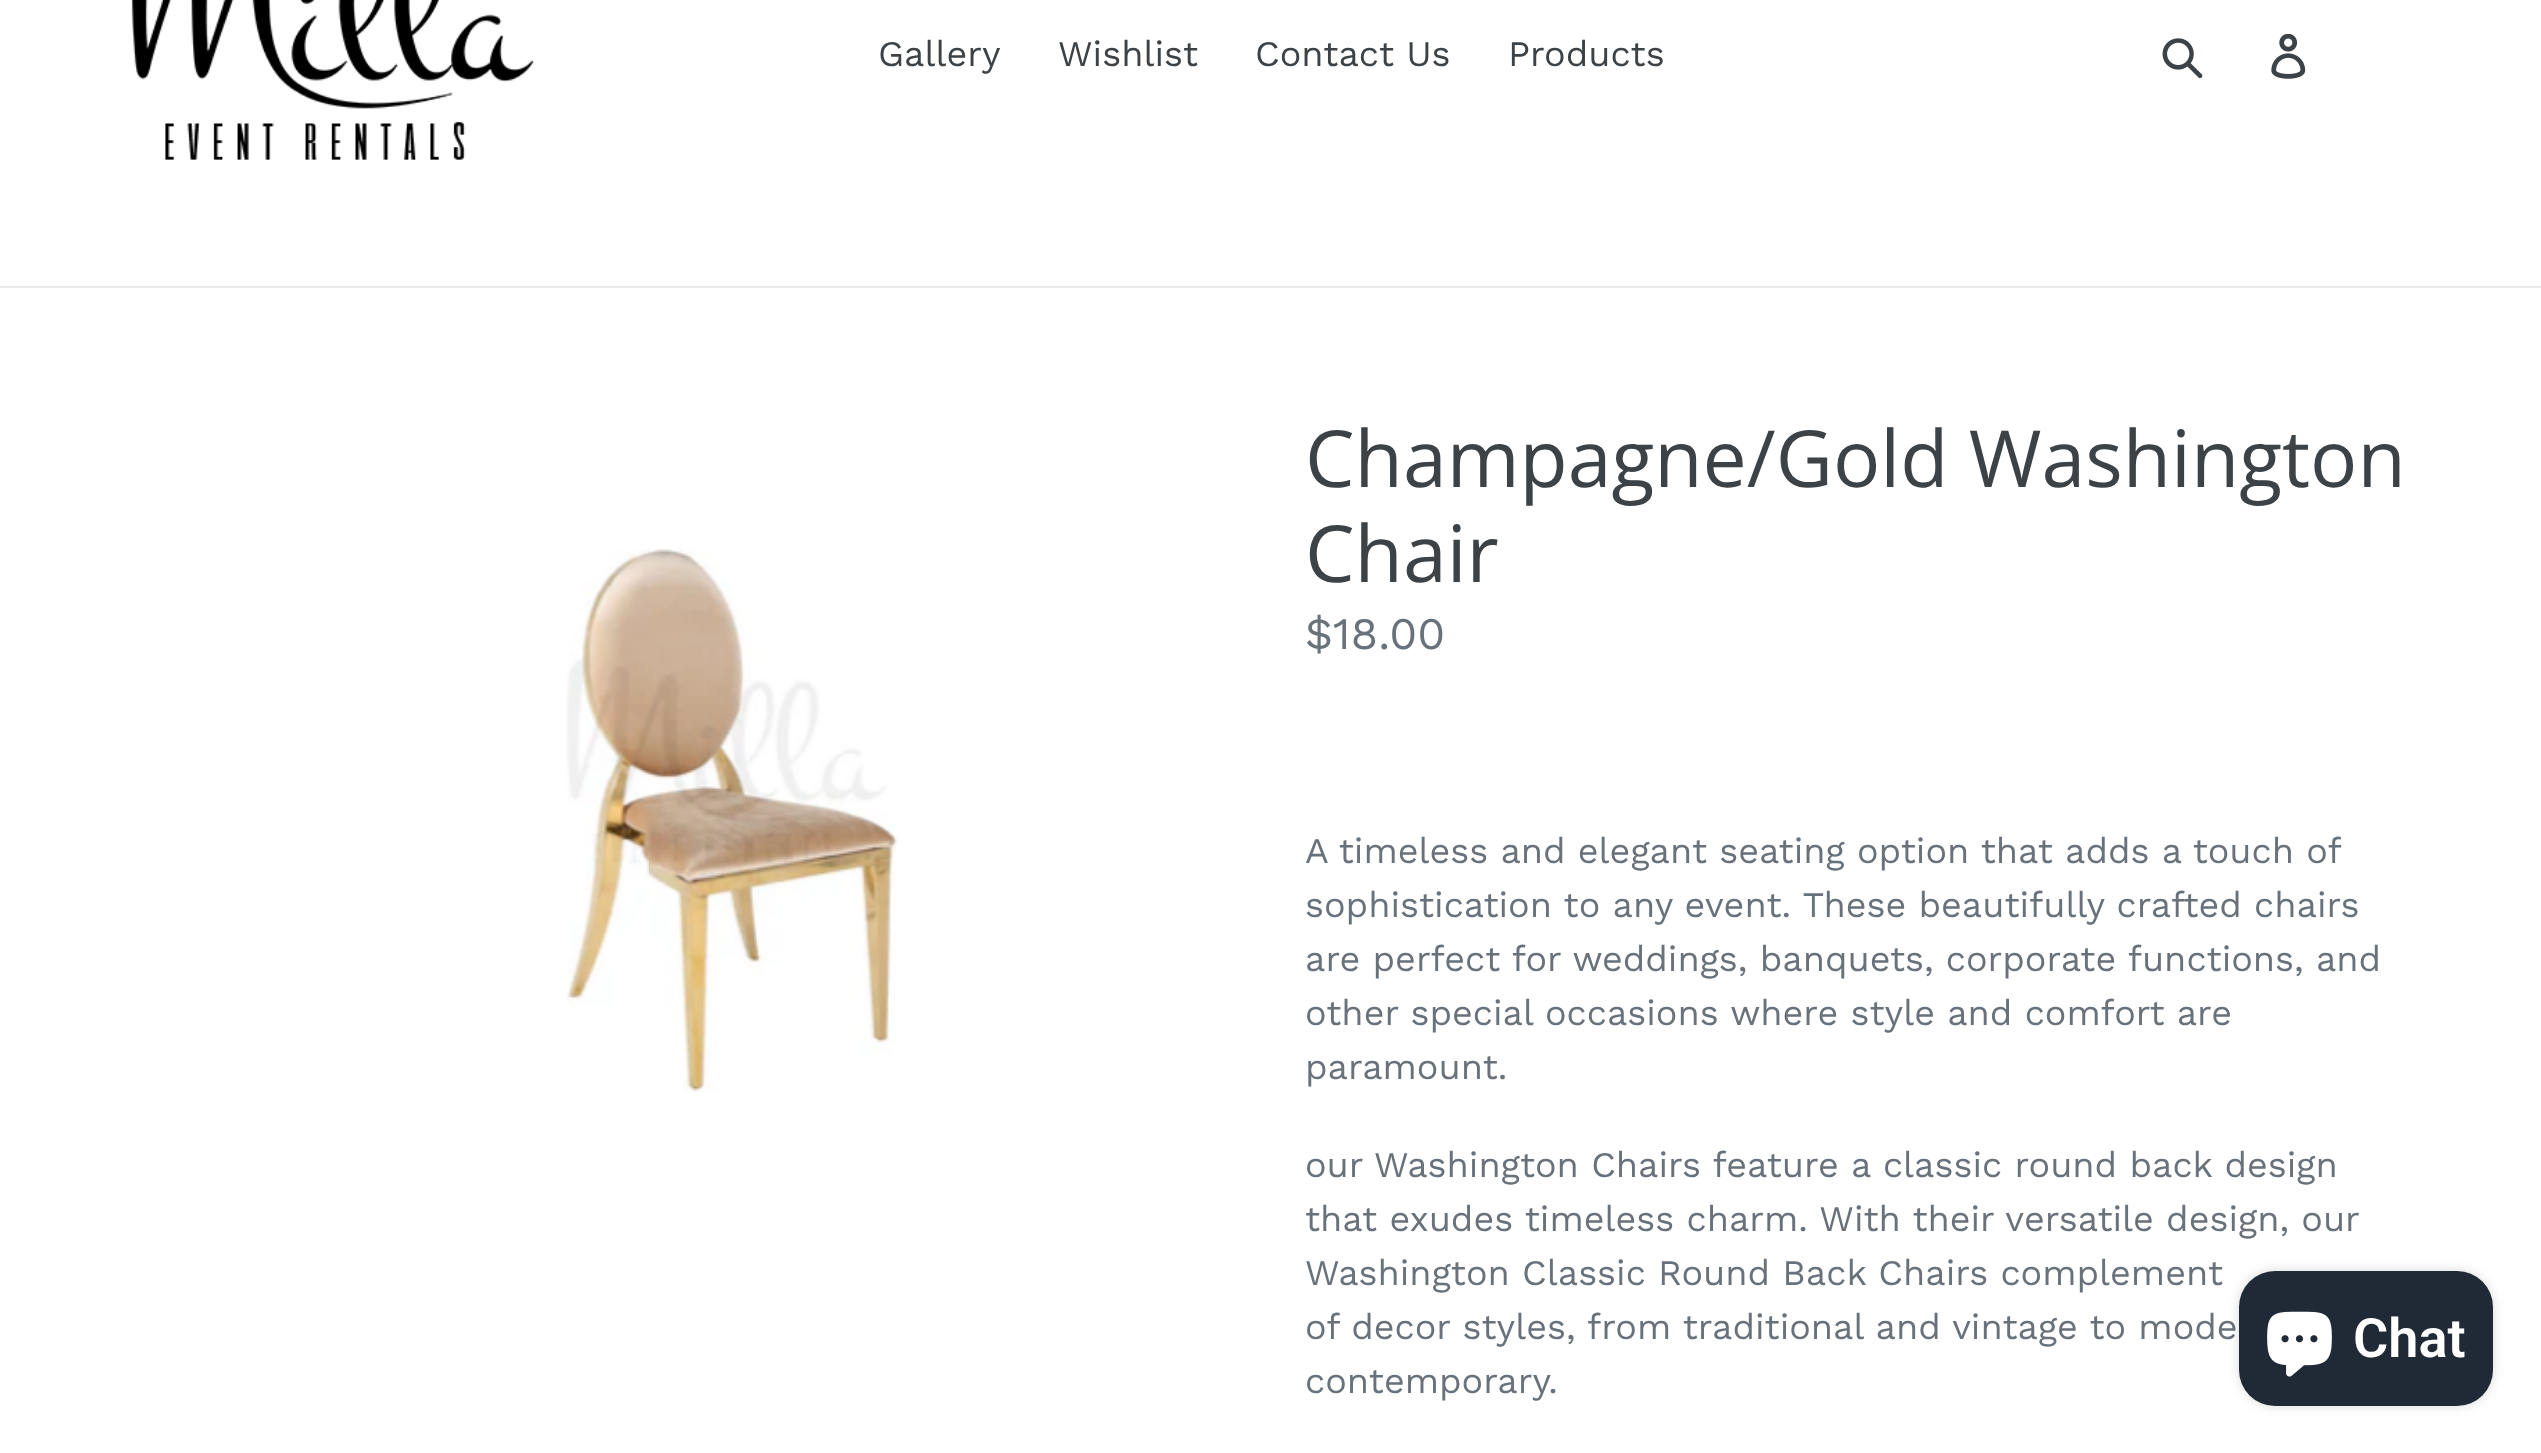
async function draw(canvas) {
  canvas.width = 2541;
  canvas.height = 1453;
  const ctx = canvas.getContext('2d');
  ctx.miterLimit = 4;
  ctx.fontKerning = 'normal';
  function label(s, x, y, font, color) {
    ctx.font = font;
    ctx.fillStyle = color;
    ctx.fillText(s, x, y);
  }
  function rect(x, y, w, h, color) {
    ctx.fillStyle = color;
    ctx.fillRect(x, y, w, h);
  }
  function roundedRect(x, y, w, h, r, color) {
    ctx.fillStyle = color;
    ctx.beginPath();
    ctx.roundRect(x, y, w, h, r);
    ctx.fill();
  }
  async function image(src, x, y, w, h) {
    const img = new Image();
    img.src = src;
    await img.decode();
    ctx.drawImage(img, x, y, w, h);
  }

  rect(0, 0, 2541, 1453, '#fff');
  rect(0, 286, 2541, 2, '#e8e9eb');
  await image('assets/img1.png', 131, 0, 403, 160);
  label('Gallery', 878, 66, '36px Work Sans', '#3d4246');
  label('Wishlist', 1058, 66, '36px Work Sans', '#3d4246');
  label('Contact Us', 1255, 66, '36px Work Sans', '#3d4246');
  label('Products', 1508, 66, '36px Work Sans', '#3d4246');
  await image('assets/img2.png', 2162, 38, 41, 41);
  await image('assets/img3.png', 2271, 34, 35, 45);
  await image('assets/img4.png', 566, 549, 332, 544);
  label('Champagne/Gold Washington', 1305, 487, '78.75px Open Sans', '#3d4246');
  label('Chair', 1305, 582, '78.75px Open Sans', '#3d4246');
  label('$18.00', 1305, 649, '45px Work Sans', '#69727b');
  ctx.wordSpacing = '-0.1px';
  label('A timeless and elegant seating option that adds a touch of', 1305, 863, '36px Work Sans', '#69727b');
  ctx.wordSpacing = '0px';
  label('sophistication to any event. These beautifully crafted chairs', 1305, 917, '36px Work Sans', '#69727b');
  label('are perfect for weddings, banquets, corporate functions, and', 1305, 971, '36px Work Sans', '#69727b');
  label('other special occasions where style and comfort are', 1305, 1025, '36px Work Sans', '#69727b');
  label('paramount.', 1305, 1079, '36px Work Sans', '#69727b');
  label('our Washington Chairs feature a classic round back design', 1305, 1177, '36px Work Sans', '#69727b');
  label('that exudes timeless charm. With their versatile design, our', 1305, 1231, '36px Work Sans', '#69727b');
  label('Washington Classic Round Back Chairs complement', 1305, 1285, '36px Work Sans', '#69727b');
  label('of decor styles, from traditional and vintage to mode', 1305, 1339, '36px Work Sans', '#69727b');
  label('contemporary.', 1305, 1393, '36px Work Sans', '#69727b');
  ctx.fillStyle = '#00000026';
  ctx.filter = 'blur(5.5px)';
  ctx.beginPath();
  ctx.roundRect(2239, 1271, 254, 135, 36);
  ctx.fill();
  ctx.filter = 'none';
  roundedRect(2239, 1271, 254, 135, 36, '#202a36');
  await image('assets/img5.png', 2267, 1311, 65, 66);
  label('Chat', 2353, 1357, '600 54px Roboto', '#fff');
}

draw(document.querySelector('canvas'));
